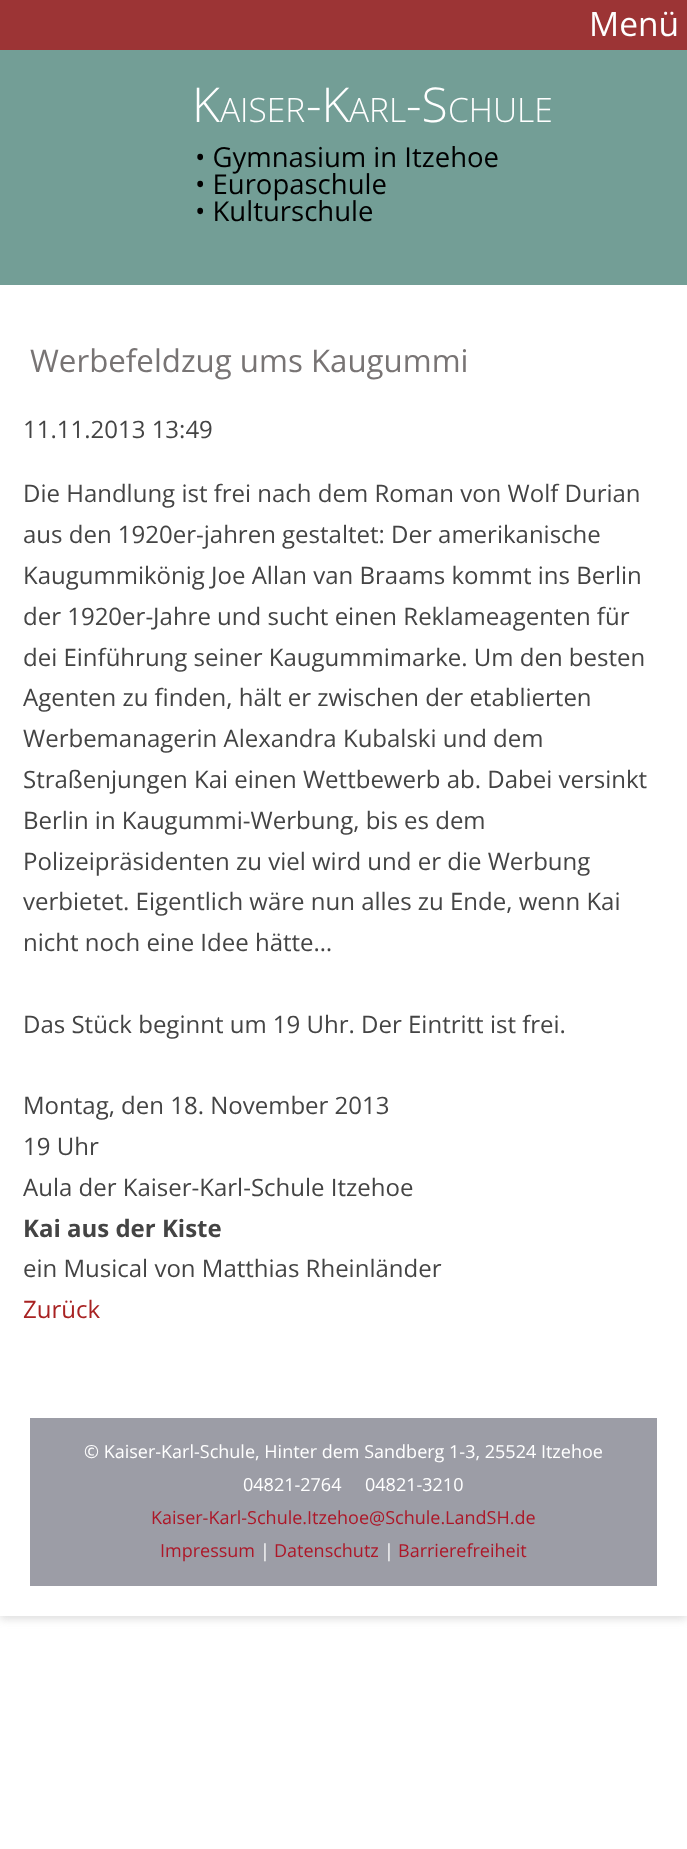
async function draw(canvas) {
  canvas.width = 687;
  canvas.height = 1849;
  const ctx = canvas.getContext('2d');
  ctx.miterLimit = 4;
  ctx.fontKerning = 'normal';
  function label(s, x, y, font, color) {
    ctx.font = font;
    ctx.fillStyle = color;
    ctx.fillText(s, x, y);
  }
  function rect(x, y, w, h, color) {
    ctx.fillStyle = color;
    ctx.fillRect(x, y, w, h);
  }

  rect(0, 0, 687, 1849, '#fff');
  ctx.fillStyle = '#8e8e8e4d';
  ctx.filter = 'blur(4.5px)';
  ctx.beginPath();
  ctx.rect(0, 3, 687, 1616);
  ctx.fill();
  ctx.filter = 'none';
  rect(0, 285, 687, 1103, '#fff');
  rect(0, 50, 687, 235, '#739e96');
  rect(0, 0, 687, 50, '#9c3435');
  label('Menü', 589, 36, '33.5px Open Sans', '#fff');
  label('K', 192, 122, '300 48px Open Sans', '#fff');
  label('AISER', 220, 122, '300 33.5px Open Sans', '#fff');
  label('-K', 306, 122, '300 48px Open Sans', '#fff');
  label('ARL', 349, 122, '300 33.5px Open Sans', '#fff');
  label('-S', 406, 122, '300 48px Open Sans', '#fff');
  label('CHULE', 448, 122, '300 33.5px Open Sans', '#fff');
  label('• Gymnasium in Itzehoe', 195, 167, '27.5px Open Sans', '#000');
  label('• Europaschule', 195, 194, '27.5px Open Sans', '#000');
  label('• Kulturschule', 195, 221, '27.5px Open Sans', '#000');
  label('Werbefeldzug ums Kaugummi', 30, 372, '31.25px Open Sans', '#787474');
  label('11.11.2013 13:49', 23, 438, '24px Open Sans', '#444');
  label('Die Handlung ist frei nach dem Roman von Wolf Durian', 23, 502, '24px Open Sans', '#444');
  label('aus den 1920er-jahren gestaltet: Der amerikanische', 23, 543, '24px Open Sans', '#444');
  label('Kaugummikönig Joe Allan van Braams kommt ins Berlin', 23, 584, '24px Open Sans', '#444');
  label('der 1920er-Jahre und sucht einen Reklameagenten für', 23, 625, '24px Open Sans', '#444');
  label('dei Einführung seiner Kaugummimarke. Um den besten', 23, 666, '24px Open Sans', '#444');
  label('Agenten zu finden, hält er zwischen der etablierten', 23, 706, '24px Open Sans', '#444');
  label('Werbemanagerin Alexandra Kubalski und dem', 23, 747, '24px Open Sans', '#444');
  label('Straßenjungen Kai einen Wettbewerb ab. Dabei versinkt', 23, 788, '24px Open Sans', '#444');
  label('Berlin in Kaugummi-Werbung, bis es dem', 23, 829, '24px Open Sans', '#444');
  label('Polizeipräsidenten zu viel wird und er die Werbung', 23, 870, '24px Open Sans', '#444');
  label('verbietet. Eigentlich wäre nun alles zu Ende, wenn Kai', 23, 910, '24px Open Sans', '#444');
  label('nicht noch eine Idee hätte…', 23, 951, '24px Open Sans', '#444');
  label('Das Stück beginnt um 19 Uhr. Der Eintritt ist frei.', 23, 1033, '24px Open Sans', '#444');
  label('Montag, den 18. November 2013', 23, 1114, '24px Open Sans', '#444');
  label('19 Uhr', 23, 1155, '24px Open Sans', '#444');
  label('Aula der Kaiser-Karl-Schule Itzehoe', 23, 1196, '24px Open Sans', '#444');
  label('Kai aus der Kiste', 23, 1237, 'bold 24px Open Sans', '#444');
  label('ein Musical von Matthias Rheinländer', 23, 1277, '24px Open Sans', '#444');
  label('Zurück', 23, 1318, '24px Open Sans', '#a82222');
  ctx.fillStyle = '#9c9da6';
  ctx.beginPath();
  ctx.rect(15, 1403, 657, 198);
  ctx.fill();
  ctx.strokeStyle = '#fff';
  ctx.lineWidth = 30;
  ctx.stroke();
  label('© Kaiser-Karl-Schule, Hinter dem Sandberg 1-3, 25524 Itzehoe', 84, 1458, '18px Open Sans', '#fff');
  label('04821-2764', 243, 1491, '18px Open Sans', '#fff');
  label('04821-3210', 365, 1491, '18px Open Sans', '#fff');
  label('Kaiser-Karl-Schule.Itzehoe@Schule.LandSH.de', 151, 1524, '18px Open Sans', '#ad1728');
  label('Impressum', 160, 1557, '18px Open Sans', '#ad1728');
  label('|', 260, 1557, '18px Open Sans', '#fff');
  label('Datenschutz', 274, 1557, '18px Open Sans', '#ad1728');
  label('|', 384, 1557, '18px Open Sans', '#fff');
  label('Barrierefreiheit', 398, 1557, '18px Open Sans', '#ad1728');
}

draw(document.querySelector('canvas'));
